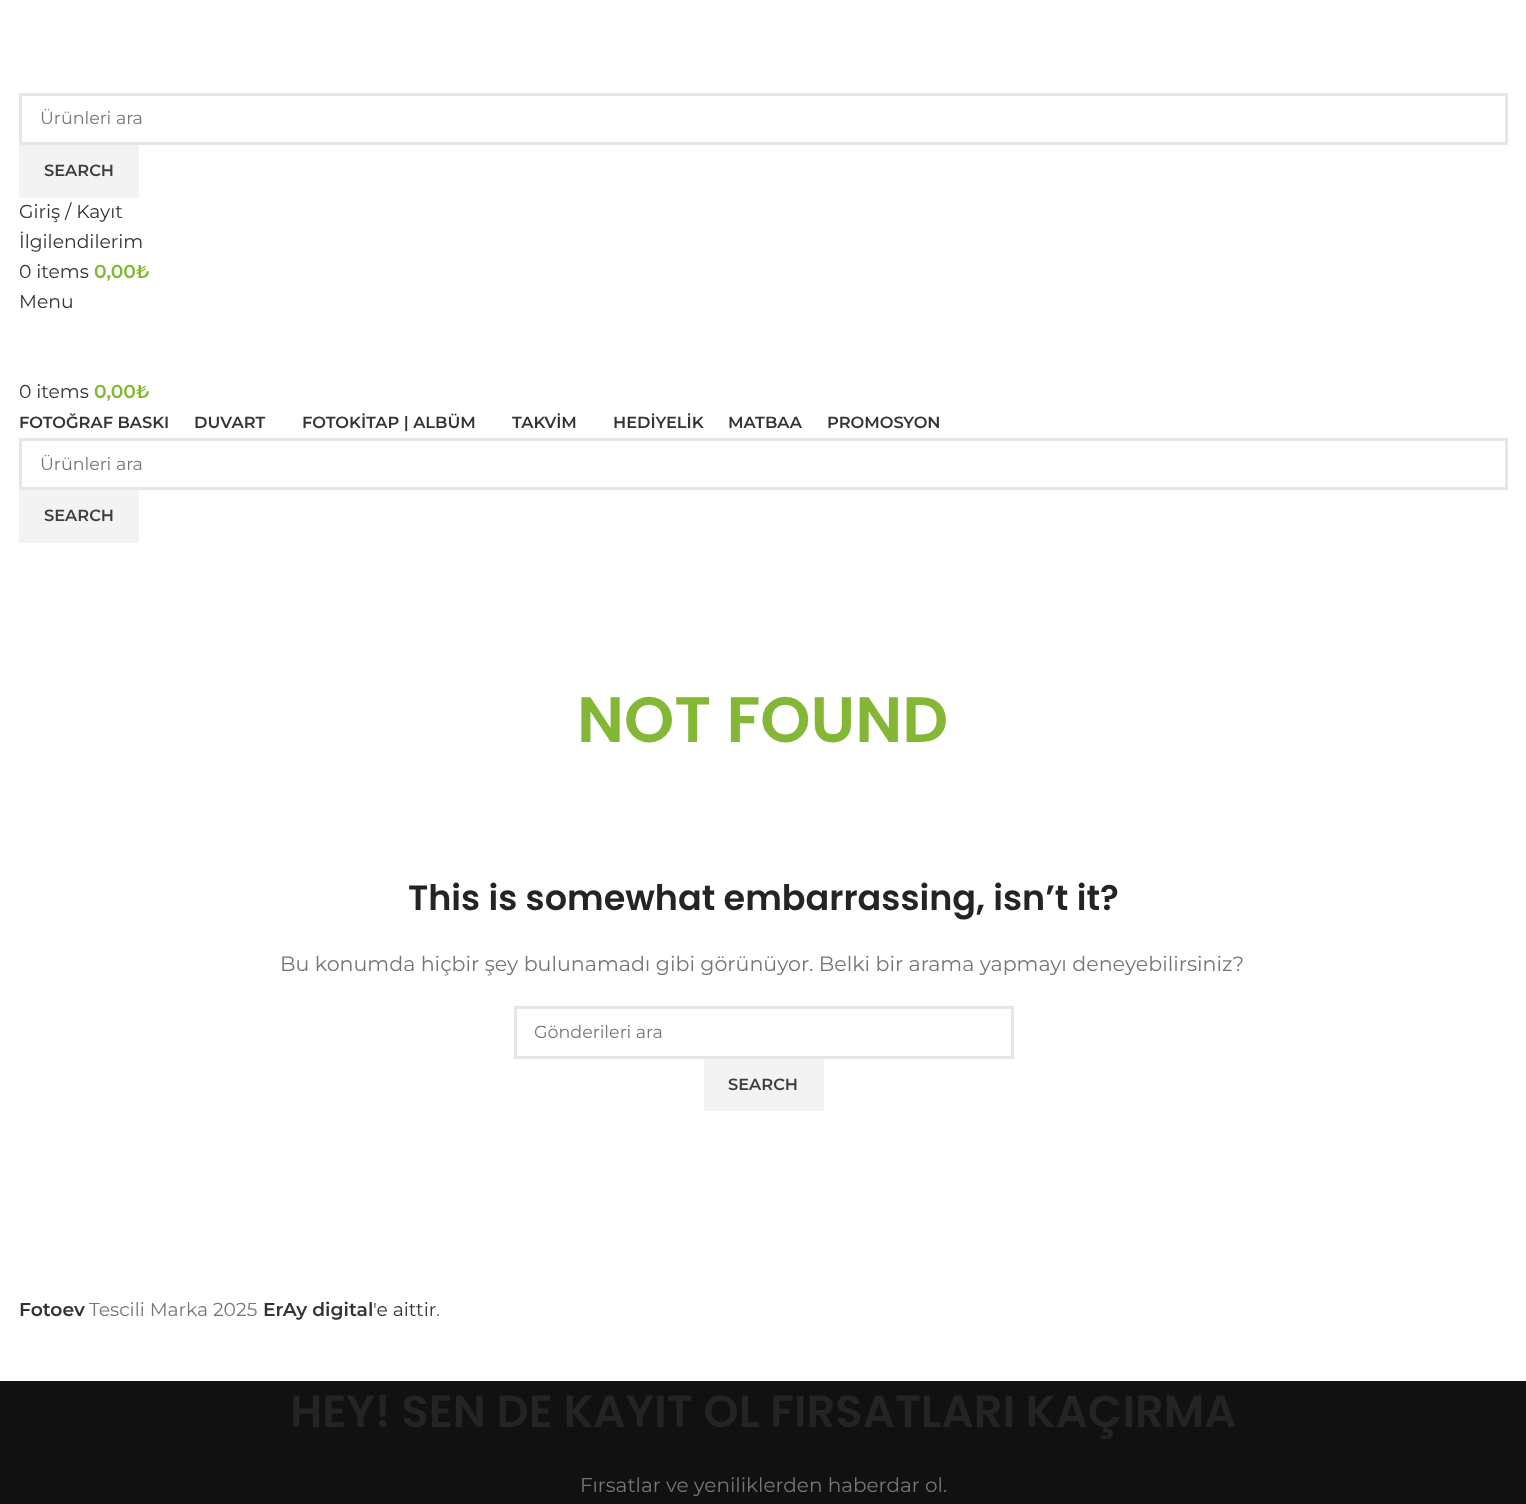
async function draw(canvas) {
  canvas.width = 1526;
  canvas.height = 1504;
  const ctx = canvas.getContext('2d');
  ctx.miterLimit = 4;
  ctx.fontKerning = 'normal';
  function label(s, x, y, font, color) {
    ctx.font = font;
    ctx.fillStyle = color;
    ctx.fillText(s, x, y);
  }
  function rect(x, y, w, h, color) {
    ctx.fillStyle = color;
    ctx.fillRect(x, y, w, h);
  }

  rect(0, 0, 1526, 1504, '#fff');
  ctx.strokeStyle = '#e6e6e6';
  ctx.lineWidth = 3;
  ctx.strokeRect(20.5, 94.5, 1486, 49);
  label('Ürünleri ara', 40, 124, '17.5px Montserrat', '#767676');
  rect(19, 145, 120, 53, '#f3f3f3');
  label('SEARCH', 44, 176, '600 16.25px Montserrat', '#3e3e3e');
  label('Giriş / Kayıt', 19, 218, '18.75px Montserrat', '#333');
  label('İlgilendilerim', 19, 248, '18.75px Montserrat', '#333');
  label('0 items', 19, 278, '18.75px Montserrat', '#333');
  label('0,00₺', 94, 278, '600 18.75px Montserrat', '#83b735');
  label('Menu', 19, 308, '18.75px Montserrat', '#333');
  label('0 items', 19, 398, '18.75px Montserrat', '#333');
  label('0,00₺', 94, 398, '600 18.75px Montserrat', '#83b735');
  label('FOTOĞRAF BASKI', 19, 428, '600 16.25px Montserrat', '#333');
  label('DUVART', 194, 428, '600 16.25px Montserrat', '#333');
  label('FOTOKİTAP | ALBÜM', 302, 428, '600 16.25px Montserrat', '#333');
  label('TAKVİM', 512, 428, '600 16.25px Montserrat', '#333');
  label('HEDİYELİK', 613, 428, '600 16.25px Montserrat', '#333');
  label('MATBAA', 728, 428, '600 16.25px Montserrat', '#333');
  label('PROMOSYON', 827, 428, '600 16.25px Montserrat', '#333');
  ctx.strokeRect(20.5, 439.5, 1486, 49);
  label('Ürünleri ara', 40, 470, '17.5px Montserrat', '#767676');
  rect(19, 490, 120, 53, '#f3f3f3');
  label('SEARCH', 44, 521, '600 16.25px Montserrat', '#3e3e3e');
  label('NOT FOUND', 577, 742, '600 64px Poppins', '#83b735');
  label('This is somewhat embarrassing, isn’t it?', 408, 910, '600 35px Poppins', '#242424');
  label('Bu konumda hiçbir şey bulunamadı gibi görünüyor. Belki bir arama yapmayı deneyebilirsiniz?', 280, 971, '20.6px Montserrat', '#767676');
  ctx.strokeRect(515.5, 1007.5, 497, 50);
  label('Gönderileri ara', 534, 1038, '17.5px Montserrat', '#767676');
  rect(704, 1059, 120, 52, '#f3f3f3');
  label('SEARCH', 728, 1090, '600 16.25px Montserrat', '#3e3e3e');
  label('Fotoev', 19, 1316, '600 18.75px Montserrat', '#333');
  label('Tescili Marka 2025', 89, 1316, '18.75px Montserrat', '#767676');
  label('ErAy digital', 263, 1316, '600 18.75px Montserrat', '#333');
  label('\'e aittir', 373, 1316, '18.75px Montserrat', '#333');
  label('.', 436, 1316, '18.75px Montserrat', '#767676');
  rect(0, 1381, 1526, 123, '#111');
  label('HEY! SEN DE KAYIT OL FIRSATLARI KAÇIRMA', 290, 1427, '600 45px Poppins', '#242424');
  label('Fırsatlar ve yeniliklerden haberdar ol.', 580, 1492, '20px Montserrat', '#767676');
}

draw(document.querySelector('canvas'));
